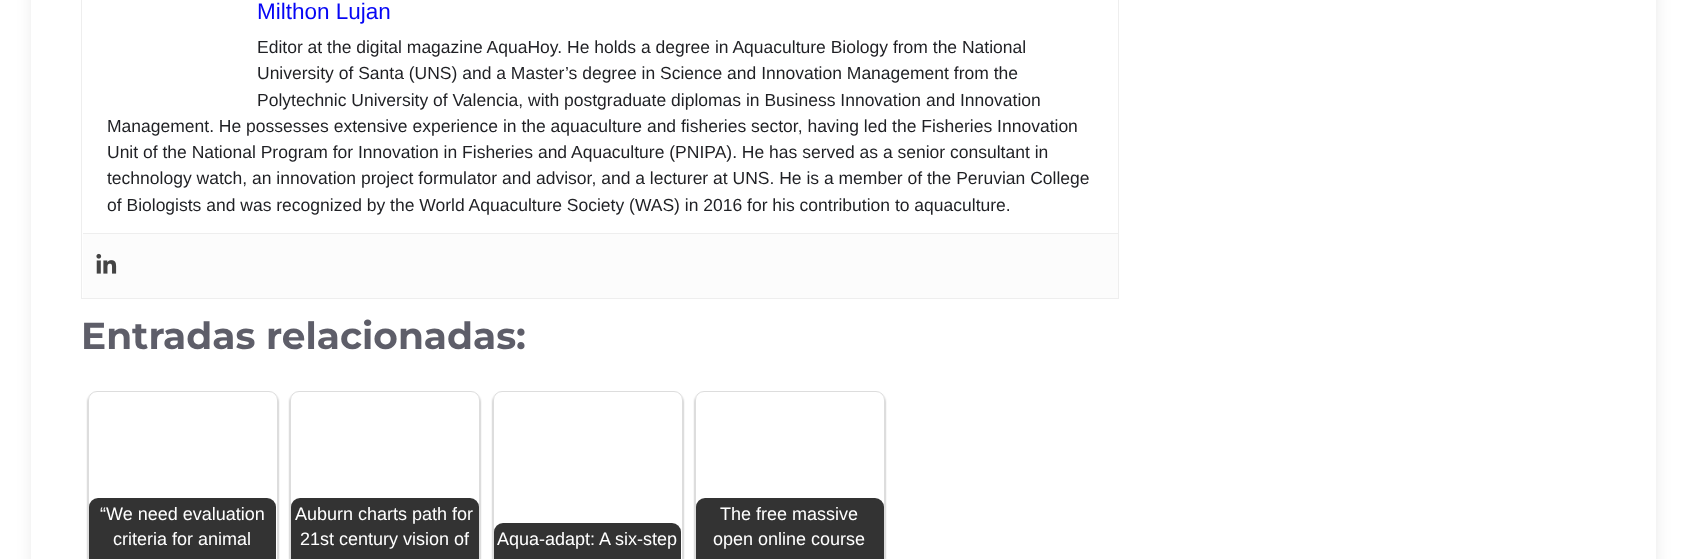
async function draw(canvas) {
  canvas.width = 1686;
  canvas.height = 559;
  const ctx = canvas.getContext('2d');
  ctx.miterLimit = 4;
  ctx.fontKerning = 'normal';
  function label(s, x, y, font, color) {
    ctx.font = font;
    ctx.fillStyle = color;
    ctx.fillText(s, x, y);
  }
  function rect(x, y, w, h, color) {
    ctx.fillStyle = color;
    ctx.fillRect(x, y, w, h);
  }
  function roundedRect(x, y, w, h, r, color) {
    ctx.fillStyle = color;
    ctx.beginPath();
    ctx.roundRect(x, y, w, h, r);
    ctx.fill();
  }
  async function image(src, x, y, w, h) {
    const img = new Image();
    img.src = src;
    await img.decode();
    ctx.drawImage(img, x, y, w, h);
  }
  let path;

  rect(0, 0, 1686, 559, '#fff');
  ctx.fillStyle = '#0000004d';
  ctx.filter = 'blur(12.5px)';
  ctx.beginPath();
  ctx.rect(44, -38, 1600, 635);
  ctx.fill();
  ctx.filter = 'none';
  rect(31, 0, 1625, 559, '#fff');
  ctx.strokeStyle = '#eee';
  ctx.strokeRect(81.5, -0.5, 1037, 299);
  label('Milthon Lujan', 257, 19, '22.5px Liberation Sans', '#0606f5');
  label('Editor at the digital magazine AquaHoy. He holds a degree in Aquaculture Biology from the National', 257, 53, '17.5px Liberation Sans', '#1f2024');
  label('University of Santa (UNS) and a Master’s degree in Science and Innovation Management from the', 257, 79, '17.5px Liberation Sans', '#1f2024');
  label('Polytechnic University of Valencia, with postgraduate diplomas in Business Innovation and Innovation', 257, 106, '17.5px Liberation Sans', '#1f2024');
  label('Management. He possesses extensive experience in the aquaculture and fisheries sector, having led the Fisheries Innovation', 107, 132, '17.5px Liberation Sans', '#1f2024');
  label('Unit of the National Program for Innovation in Fisheries and Aquaculture (PNIPA). He has served as a senior consultant in', 107, 158, '17.5px Liberation Sans', '#1f2024');
  label('technology watch, an innovation project formulator and advisor, and a lecturer at UNS. He is a member of the Peruvian College', 107, 184, '17.5px Liberation Sans', '#1f2024');
  label('of Biologists and was recognized by the World Aquaculture Society (WAS) in 2016 for his contribution to aquaculture.', 107, 211, '17.5px Liberation Sans', '#1f2024');
  rect(83, 234, 1035, 64, '#fcfcfc');
  rect(83, 233, 1035, 1, '#eee');
  await image('assets/img1.png', 96, 253, 21, 21);
  label('Entradas relacionadas:', 81, 349, 'bold 37.5px Montserrat', '#5e5e69');
  ctx.save();
  path = new Path2D('M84 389H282V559H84ZM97 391H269C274 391 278 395 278 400V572C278 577 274 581 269 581H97C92 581 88 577 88 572V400C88 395 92 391 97 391Z');
  ctx.clip(path, 'evenodd');
  ctx.fillStyle = '#00000066';
  ctx.filter = 'blur(1px)';
  ctx.beginPath();
  ctx.roundRect(88, 393, 190, 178, 9);
  ctx.fill();
  ctx.filter = 'none';
  ctx.restore();
  ctx.beginPath();
  ctx.roundRect(88.5, 391.5, 189, 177, 8.5);
  ctx.strokeStyle = '#ddd';
  ctx.stroke();
  roundedRect(89, 498, 187, 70, 9, '#333');
  label('“We need evaluation', 100, 520, '18px Liberation Sans', '#fff');
  label('criteria for animal', 113, 545, '18px Liberation Sans', '#fff');
  ctx.save();
  path = new Path2D('M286 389H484V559H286ZM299 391H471C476 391 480 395 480 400V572C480 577 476 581 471 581H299C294 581 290 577 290 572V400C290 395 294 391 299 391Z');
  ctx.clip(path, 'evenodd');
  ctx.fillStyle = '#00000066';
  ctx.filter = 'blur(1px)';
  ctx.beginPath();
  ctx.roundRect(290, 393, 190, 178, 9);
  ctx.fill();
  ctx.filter = 'none';
  ctx.restore();
  ctx.beginPath();
  ctx.roundRect(290.5, 391.5, 189, 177, 8.5);
  ctx.stroke();
  roundedRect(291, 498, 188, 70, 9, '#333');
  label('Auburn charts path for', 295, 520, '18px Liberation Sans', '#fff');
  label('21st century vision of', 300, 545, '18px Liberation Sans', '#fff');
  ctx.save();
  path = new Path2D('M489 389H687V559H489ZM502 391H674C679 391 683 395 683 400V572C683 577 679 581 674 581H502C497 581 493 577 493 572V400C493 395 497 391 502 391Z');
  ctx.clip(path, 'evenodd');
  ctx.fillStyle = '#00000066';
  ctx.filter = 'blur(1px)';
  ctx.beginPath();
  ctx.roundRect(493, 393, 190, 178, 9);
  ctx.fill();
  ctx.filter = 'none';
  ctx.restore();
  ctx.beginPath();
  ctx.roundRect(493.5, 391.5, 189, 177, 8.5);
  ctx.stroke();
  roundedRect(494, 523, 187, 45, 9, '#333');
  label('Aqua-adapt: A six-step', 497, 545, '18px Liberation Sans', '#fff');
  ctx.save();
  path = new Path2D('M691 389H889V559H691ZM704 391H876C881 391 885 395 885 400V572C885 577 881 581 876 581H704C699 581 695 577 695 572V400C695 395 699 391 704 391Z');
  ctx.clip(path, 'evenodd');
  ctx.fillStyle = '#00000066';
  ctx.filter = 'blur(1px)';
  ctx.beginPath();
  ctx.roundRect(695, 393, 190, 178, 9);
  ctx.fill();
  ctx.filter = 'none';
  ctx.restore();
  ctx.beginPath();
  ctx.roundRect(695.5, 391.5, 189, 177, 8.5);
  ctx.stroke();
  roundedRect(696, 498, 188, 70, 9, '#333');
  label('The free massive', 720, 520, '18px Liberation Sans', '#fff');
  label('open online course', 713, 545, '18px Liberation Sans', '#fff');
}

draw(document.querySelector('canvas'));
